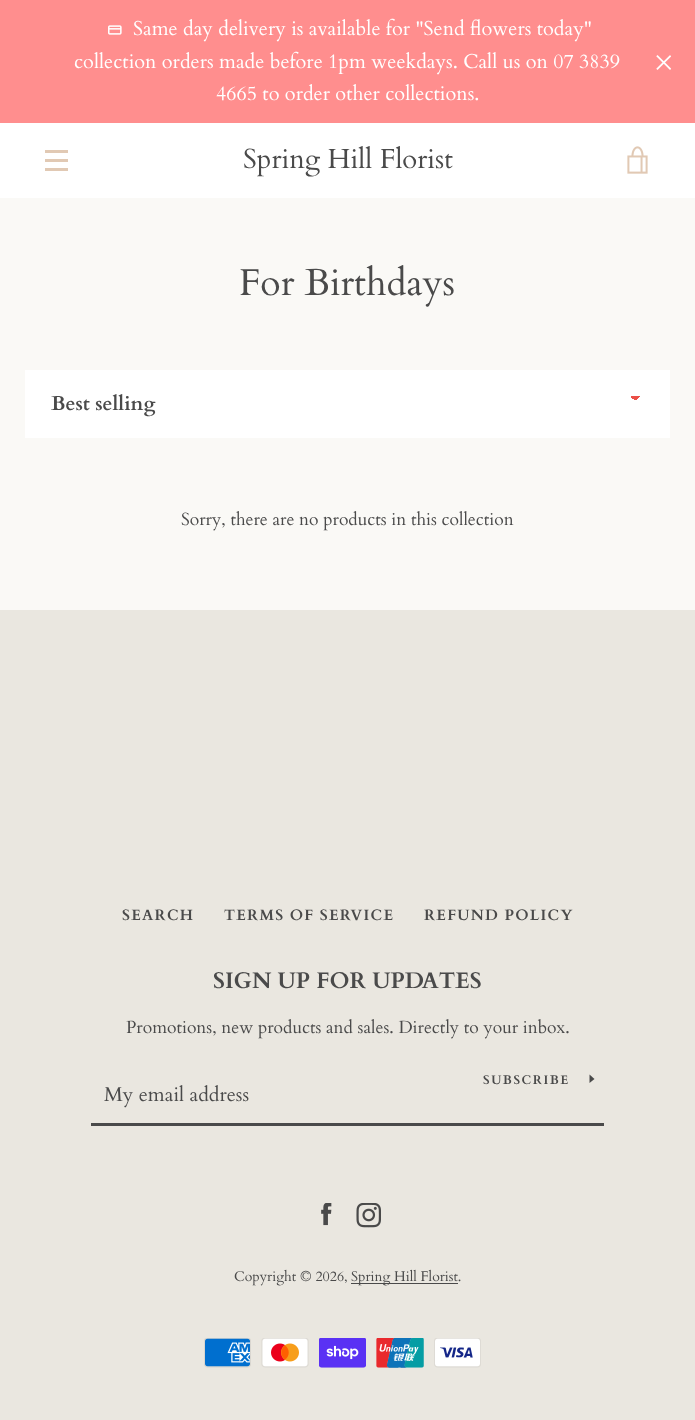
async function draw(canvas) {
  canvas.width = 695;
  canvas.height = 1420;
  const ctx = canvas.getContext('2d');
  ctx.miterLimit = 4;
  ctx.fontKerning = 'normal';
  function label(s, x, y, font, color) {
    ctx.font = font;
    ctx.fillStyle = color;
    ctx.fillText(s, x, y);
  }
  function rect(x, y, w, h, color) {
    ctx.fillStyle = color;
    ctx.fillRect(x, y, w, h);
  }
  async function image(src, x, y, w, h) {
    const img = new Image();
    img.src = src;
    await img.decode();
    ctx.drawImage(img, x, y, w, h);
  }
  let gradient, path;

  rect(0, 0, 695, 1420, '#eae7e0');
  rect(0, 198, 695, 412, '#faf9f6');
  rect(0, 123, 695, 75, '#fff');
  rect(0, 0, 695, 123, '#ff8e8e');
  await image('assets/img1.png', 108, 25, 14, 10);
  label('Same day delivery is available for "Send flowers today"', 133, 35, '20px Cardo', '#fff');
  label('collection orders made before 1pm weekdays. Call us on 07 3839', 74, 68, '20px Cardo', '#fff');
  label('4665 to order other collections.', 216, 100, '20px Cardo', '#fff');
  await image('assets/img2.png', 656, 55, 15, 15);
  rect(45, 150, 23, 3, '#e1c9b4');
  rect(45, 159, 23, 3, '#e1c9b4');
  rect(45, 168, 23, 3, '#e1c9b4');
  label('Spring Hill Florist', 243, 168, '27.5px Cardo', '#4a4a4a');
  await image('assets/img3.png', 627, 146, 21, 28);
  label('For Birthdays', 239, 295, '37.5px Cardo', '#4a4a4a');
  rect(25, 370, 645, 68, '#fff');
  gradient = ctx.createLinearGradient(635, 396, 640, 401);
  gradient.addColorStop(0.5, '#eb4f47');
  gradient.addColorStop(0.5, '#fff');
  ctx.fillStyle = gradient;
  ctx.fillRect(635, 396, 5, 4);
  gradient = ctx.createLinearGradient(630, 401, 635, 396);
  gradient.addColorStop(0.5, '#fff');
  gradient.addColorStop(0.5, '#eb4f47');
  ctx.fillStyle = gradient;
  ctx.fillRect(630, 396, 5, 4);
  label('Best selling', 51, 410, 'bold 20px Cardo', '#4a4a4a');
  label('Sorry, there are no products in this collection', 181, 525, '17.5px Cardo', '#4a4a4a');
  ctx.letterSpacing = '1.25px';
  label('SEARCH', 122, 920, 'bold 15px Cardo', '#4a4a4a');
  label('TERMS OF SERVICE', 224, 920, 'bold 15px Cardo', '#4a4a4a');
  label('REFUND POLICY', 424, 920, 'bold 15px Cardo', '#4a4a4a');
  ctx.letterSpacing = '0px';
  label('SIGN UP FOR UPDATES', 213, 988, 'bold 22.5px Cardo', '#4a4a4a');
  label('Promotions, new products and sales. Directly to your inbox.', 126, 1033, '17.5px Cardo', '#4a4a4a');
  rect(91, 1123, 513, 3, '#4a4a4a');
  ctx.letterSpacing = '1.5px';
  label('SUBSCRIBE', 483, 1084, 'bold 12.5px Cardo', '#4a4a4a');
  path = new Path2D('M594.5 1079L589.5 1083V1074.5Z');
  ctx.fill(path);
  ctx.letterSpacing = '0px';
  label('My email address', 104, 1101, '20px Cardo', '#4a4a4a');
  await image('assets/img4.png', 321, 1203, 11, 23);
  await image('assets/img5.png', 356, 1203, 25, 25);
  label('Copyright © 2026,', 234, 1281, '14px Cardo', '#4a4a4a');
  rect(351, 1283, 107, 1, '#4a4a4a');
  label('Spring Hill Florist.', 351, 1281, '14px Cardo', '#4a4a4a');
  await image('assets/img6.png', 204, 1338, 47, 30);
  await image('assets/img7.png', 261, 1338, 48, 30);
  await image('assets/img8.png', 319, 1338, 47, 30);
  await image('assets/img9.png', 376, 1338, 48, 30);
  await image('assets/img10.png', 434, 1338, 47, 30);
}

draw(document.querySelector('canvas'));
